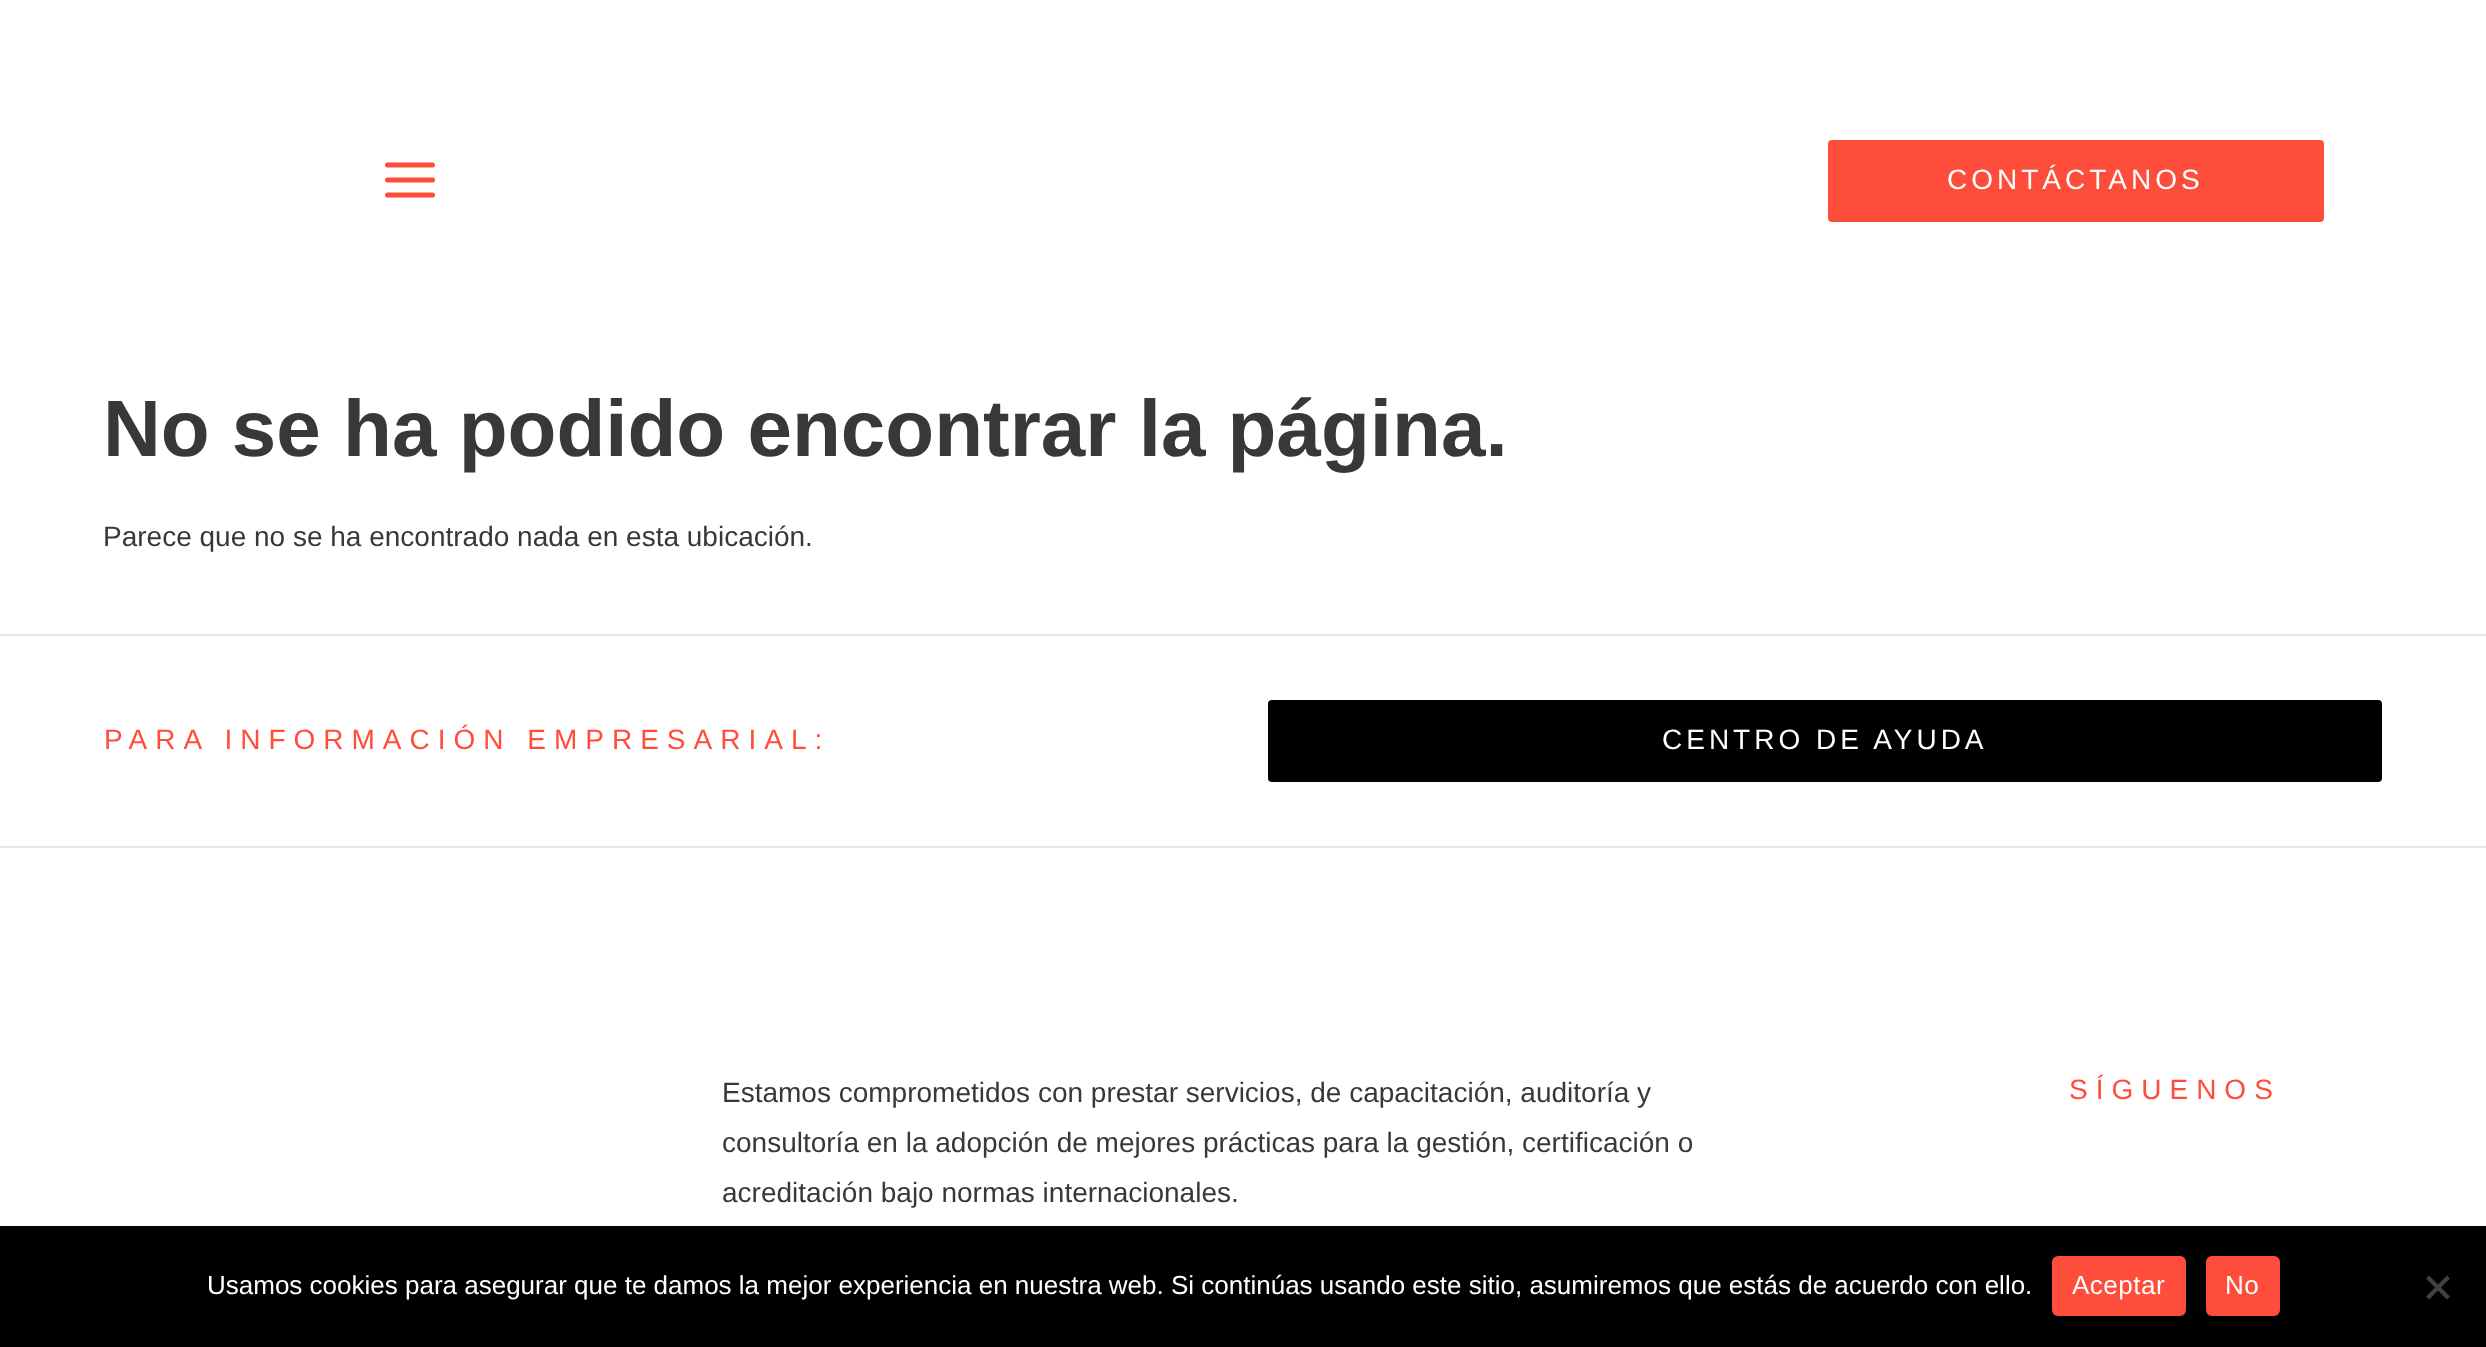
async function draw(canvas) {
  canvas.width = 2486;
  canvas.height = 1347;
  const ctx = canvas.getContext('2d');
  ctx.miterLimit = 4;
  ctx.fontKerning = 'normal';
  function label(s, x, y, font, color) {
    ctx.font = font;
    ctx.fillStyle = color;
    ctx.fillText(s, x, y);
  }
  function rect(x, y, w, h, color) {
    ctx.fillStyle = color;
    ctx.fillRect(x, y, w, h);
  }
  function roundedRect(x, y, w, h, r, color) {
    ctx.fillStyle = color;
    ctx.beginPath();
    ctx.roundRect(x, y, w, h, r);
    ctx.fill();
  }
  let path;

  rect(0, 0, 2486, 1347, '#fff');
  path = new Path2D('M387.5 165H432.5M387.5 180H432.5M387.5 195H432.5');
  ctx.strokeStyle = '#ff4d3b';
  ctx.lineWidth = 5;
  ctx.lineCap = 'round';
  ctx.stroke(path);
  roundedRect(1828, 140, 496, 82, 4, '#ff4d3b');
  ctx.letterSpacing = '4px';
  label('CONTÁCTANOS', 1947, 189, '28px Liberation Sans', '#fff');
  ctx.letterSpacing = '0px';
  label('No se ha podido encontrar la página.', 103, 456, 'bold 80px Liberation Sans', '#383838');
  label('Parece que no se ha encontrado nada en esta ubicación.', 103, 546, '28px Liberation Sans', '#383838');
  rect(0, 634, 2486, 2, '#e6e6e6');
  rect(0, 846, 2486, 2, '#e6e6e6');
  ctx.letterSpacing = '8px';
  label('PARA INFORMACIÓN EMPRESARIAL:', 104, 749, '28px Liberation Sans', '#ff4d3b');
  roundedRect(1268, 700, 1114, 82, 4, '#000');
  ctx.letterSpacing = '4px';
  label('CENTRO DE AYUDA', 1662, 749, '28px Liberation Sans', '#fff');
  ctx.letterSpacing = '0px';
  label('Estamos comprometidos con prestar servicios, de capacitación, auditoría y', 722, 1102, '28px Liberation Sans', '#383838');
  label('consultoría en la adopción de mejores prácticas para la gestión, certificación o', 722, 1152, '28px Liberation Sans', '#383838');
  label('acreditación bajo normas internacionales.', 722, 1202, '28px Liberation Sans', '#383838');
  ctx.letterSpacing = '8px';
  label('SÍGUENOS', 2069, 1099, '28px Liberation Sans', '#ff4d3b');
  rect(0, 1226, 2486, 121, '#000');
  ctx.letterSpacing = '0px';
  label('Usamos cookies para asegurar que te damos la mejor experiencia en nuestra web. Si continúas usando este sitio, asumiremos que estás de acuerdo con ello.', 207, 1294, '26px Liberation Sans', '#fff');
  roundedRect(2052, 1256, 134, 60, 6, '#ff4d3b');
  ctx.letterSpacing = '0.5px';
  label('Aceptar', 2072, 1294, '26px Liberation Sans', '#fff');
  roundedRect(2206, 1256, 74, 60, 6, '#ff4d3b');
  label('No', 2225, 1294, '26px Liberation Sans', '#fff');
  ctx.fillStyle = '#404040';
  path = new Path2D('M2447 1275.5L2450 1278.5L2429 1299.5L2426 1296.5Z');
  ctx.fill(path);
  path = new Path2D('M2426 1278.5L2429 1275.5L2450 1296.5L2447 1299.5Z');
  ctx.fill(path);
}

draw(document.querySelector('canvas'));
